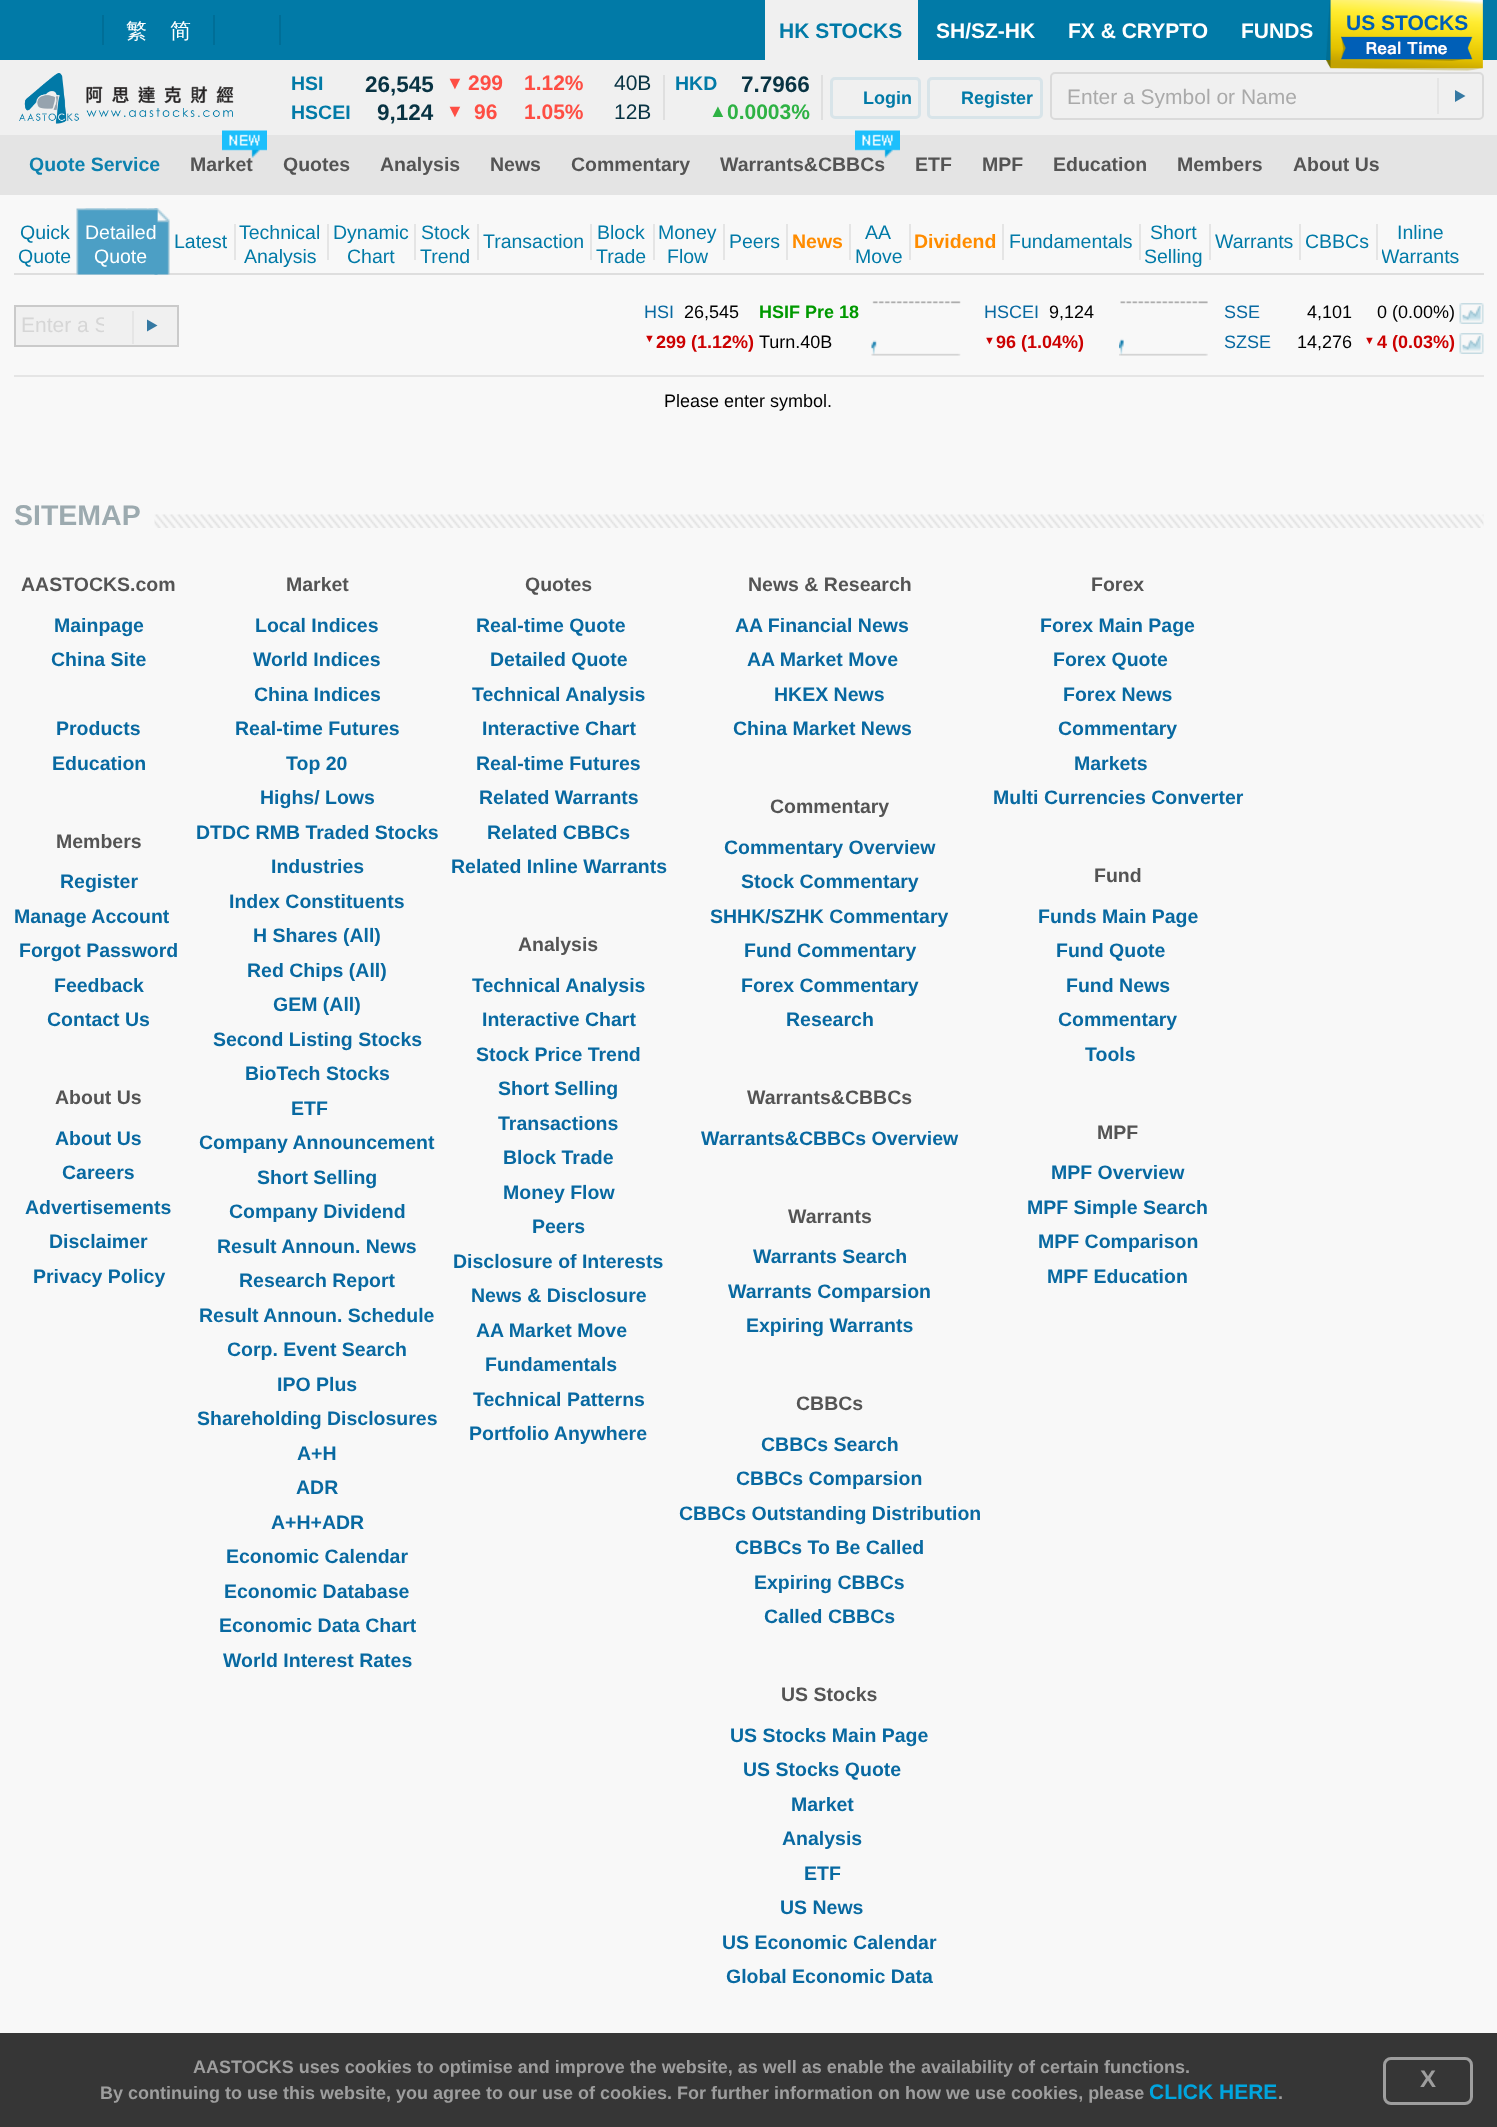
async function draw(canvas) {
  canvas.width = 1497;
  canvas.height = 2127;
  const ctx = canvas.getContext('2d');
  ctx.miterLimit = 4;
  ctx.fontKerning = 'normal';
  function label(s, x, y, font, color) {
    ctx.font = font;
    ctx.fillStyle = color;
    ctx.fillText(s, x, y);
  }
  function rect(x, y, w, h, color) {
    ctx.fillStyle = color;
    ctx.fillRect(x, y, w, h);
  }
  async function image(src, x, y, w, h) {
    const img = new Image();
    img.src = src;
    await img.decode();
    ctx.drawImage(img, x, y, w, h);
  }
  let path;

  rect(0, 0, 1497, 2127, '#f8f8f8');
  rect(0, 60, 1497, 75, '#f0f0f0');
  rect(0, 0, 1497, 60, '#017aa7');
  rect(102, 15, 2, 30, '#006e97');
  label('繁', 126, 38, '500 21px WenQuanYi Zen Hei', '#fff');
  label('简', 170, 38, '500 21px WenQuanYi Zen Hei', '#fff');
  rect(213, 15, 2, 30, '#006e97');
  rect(279, 15, 2, 30, '#006e97');
  rect(765, 0, 153, 60, '#f0f0f0');
  label('HK STOCKS', 779, 38, 'bold 21px Liberation Sans', '#017aa7');
  label('SH/SZ-HK', 936, 38, 'bold 21px Liberation Sans', '#fff');
  label('FX & CRYPTO', 1068, 38, 'bold 21px Liberation Sans', '#fff');
  label('FUNDS', 1241, 38, 'bold 21px Liberation Sans', '#fff');
  await image('assets/img1.png', 1326, 0, 157, 71);
  label('US STOCKS', 1346, 30, 'bold 21px Liberation Sans', '#005fb7');
  await image('assets/img2.png', 19, 73, 215, 51);
  label('HSI', 291, 90, 'bold 19.5px Liberation Sans', '#017aa7');
  label('26,545', 365, 92, 'bold 22.5px Liberation Sans', '#083343');
  label('▼', 446, 89, 'bold 18px Liberation Sans', '#fe4e44');
  label('299', 468, 90, 'bold 21px Liberation Sans', '#fe4e44');
  label('1.12%', 524, 90, 'bold 21px Liberation Sans', '#fe4e44');
  label('40B', 614, 90, '21px Liberation Sans', '#083343');
  label('HSCEI', 291, 119, 'bold 19.5px Liberation Sans', '#017aa7');
  label('9,124', 377, 120, 'bold 22.5px Liberation Sans', '#083343');
  label('▼', 446, 117, 'bold 18px Liberation Sans', '#fe4e44');
  label('96', 474, 119, 'bold 21px Liberation Sans', '#fe4e44');
  label('1.05%', 524, 119, 'bold 21px Liberation Sans', '#fe4e44');
  label('12B', 614, 119, '21px Liberation Sans', '#083343');
  rect(663, 75, 2, 45, '#dfdfdf');
  label('HKD', 675, 90, 'bold 19.5px Liberation Sans', '#017aa7');
  label('7.7966', 741, 92, 'bold 22.5px Liberation Sans', '#083343');
  label('▲', 709, 117, 'bold 18px Liberation Sans', '#2eb244');
  label('0.0003%', 727, 119, 'bold 21px Liberation Sans', '#2eb244');
  rect(821, 75, 2, 45, '#dfdfdf');
  ctx.beginPath();
  ctx.roundRect(831.5, 78.5, 88, 39, 3.5);
  ctx.strokeStyle = '#d8e4e9';
  ctx.lineWidth = 3;
  ctx.stroke();
  label('Login', 863, 104, 'bold 18px Liberation Sans', '#017aa7');
  ctx.beginPath();
  ctx.roundRect(928.5, 78.5, 113, 39, 3.5);
  ctx.stroke();
  label('Register', 961, 104, 'bold 18px Liberation Sans', '#017aa7');
  ctx.beginPath();
  ctx.roundRect(1051, 73, 432, 46, 4);
  ctx.strokeStyle = '#dadada';
  ctx.lineWidth = 2;
  ctx.stroke();
  ctx.save();
  ctx.beginPath();
  ctx.rect(1067, 84, 325, 24);
  ctx.clip();
  label('Enter a Symbol or Name', 1067, 104, '21px Liberation Sans', '#aaa');
  ctx.restore();
  rect(1437, 78, 2, 36, '#e5e5e5');
  ctx.fillStyle = '#3579a3';
  path = new Path2D('M1455 102V90L1465.5 96Z');
  ctx.fill(path);
  rect(0, 135, 1497, 60, '#e4e4e4');
  label('Quote Service', 29, 171, 'bold 19.5px Liberation Sans', '#0c81ae');
  label('Market', 190, 171, 'bold 19.5px Liberation Sans', '#545454');
  await image('assets/img3.png', 222, 130, 45, 28);
  label('Quotes', 283, 171, 'bold 19.5px Liberation Sans', '#545454');
  label('Analysis', 380, 171, 'bold 19.5px Liberation Sans', '#545454');
  label('News', 490, 171, 'bold 19.5px Liberation Sans', '#545454');
  label('Commentary', 571, 171, 'bold 19.5px Liberation Sans', '#545454');
  label('Warrants&CBBCs', 720, 171, 'bold 19.5px Liberation Sans', '#545454');
  await image('assets/img4.png', 855, 130, 45, 28);
  label('ETF', 915, 171, 'bold 19.5px Liberation Sans', '#545454');
  label('MPF', 982, 171, 'bold 19.5px Liberation Sans', '#545454');
  label('Education', 1053, 171, 'bold 19.5px Liberation Sans', '#545454');
  label('Members', 1177, 171, 'bold 19.5px Liberation Sans', '#545454');
  label('About Us', 1293, 171, 'bold 19.5px Liberation Sans', '#545454');
  rect(14, 273, 1470, 2, '#dedede');
  label('Quick', 20, 239, '19.5px Liberation Sans', '#017aa7');
  label('Quote', 18, 263, '19.5px Liberation Sans', '#017aa7');
  await image('assets/img5.png', 76, 208, 8, 67);
  await image('assets/img7.png', 154, 208, 16, 67);
  await image('assets/img6.png', 84, 208, 74, 67);
  label('Detailed', 85, 239, '19.5px Liberation Sans', '#fff');
  label('Quote', 94, 263, '19.5px Liberation Sans', '#fff');
  label('Latest', 174, 248, '19.5px Liberation Sans', '#017aa7');
  rect(234, 224, 2, 36, '#e5e5e5');
  label('Technical', 239, 239, '19.5px Liberation Sans', '#017aa7');
  label('Analysis', 244, 263, '19.5px Liberation Sans', '#017aa7');
  rect(327, 224, 2, 36, '#e5e5e5');
  label('Dynamic', 333, 239, '19.5px Liberation Sans', '#017aa7');
  label('Chart', 347, 263, '19.5px Liberation Sans', '#017aa7');
  rect(414, 224, 2, 36, '#e5e5e5');
  label('Stock', 421, 239, '19.5px Liberation Sans', '#017aa7');
  label('Trend', 420, 263, '19.5px Liberation Sans', '#017aa7');
  rect(477, 224, 2, 36, '#e5e5e5');
  label('Transaction', 483, 248, '19.5px Liberation Sans', '#017aa7');
  rect(590, 224, 2, 36, '#e5e5e5');
  label('Block', 597, 239, '19.5px Liberation Sans', '#017aa7');
  label('Trade', 596, 263, '19.5px Liberation Sans', '#017aa7');
  rect(653, 224, 2, 36, '#e5e5e5');
  label('Money', 658, 239, '19.5px Liberation Sans', '#017aa7');
  label('Flow', 667, 263, '19.5px Liberation Sans', '#017aa7');
  rect(723, 224, 2, 36, '#e5e5e5');
  label('Peers', 729, 248, '19.5px Liberation Sans', '#017aa7');
  rect(786, 224, 2, 36, '#e5e5e5');
  label('News', 792, 248, 'bold 19.5px Liberation Sans', '#ff8c00');
  rect(849, 224, 2, 36, '#e5e5e5');
  label('AA', 865, 239, '19.5px Liberation Sans', '#017aa7');
  label('Move', 855, 263, '19.5px Liberation Sans', '#017aa7');
  rect(909, 224, 2, 36, '#e5e5e5');
  label('Dividend', 914, 248, 'bold 19.5px Liberation Sans', '#ff8c00');
  rect(1002, 224, 2, 36, '#e5e5e5');
  label('Fundamentals', 1009, 248, '19.5px Liberation Sans', '#017aa7');
  rect(1139, 224, 2, 36, '#e5e5e5');
  label('Short', 1150, 239, '19.5px Liberation Sans', '#017aa7');
  label('Selling', 1144, 263, '19.5px Liberation Sans', '#017aa7');
  rect(1209, 224, 2, 36, '#e5e5e5');
  label('Warrants', 1215, 248, '19.5px Liberation Sans', '#017aa7');
  rect(1299, 224, 2, 36, '#e5e5e5');
  label('CBBCs', 1305, 248, '19.5px Liberation Sans', '#017aa7');
  rect(1376, 224, 2, 36, '#e5e5e5');
  label('Inline', 1397, 239, '19.5px Liberation Sans', '#017aa7');
  ctx.save();
  ctx.beginPath();
  ctx.rect(1382, 209, 79, 66);
  ctx.clip();
  label('Warrants', 1381, 263, '19.5px Liberation Sans', '#017aa7');
  ctx.restore();
  rect(14, 375, 1470, 2, '#e5e5e5');
  ctx.fillStyle = '#f0f0f0';
  ctx.beginPath();
  ctx.rect(15, 306, 163, 40);
  ctx.fill();
  ctx.strokeStyle = '#cacaca';
  ctx.stroke();
  ctx.save();
  ctx.beginPath();
  ctx.rect(21, 314, 83, 24);
  ctx.clip();
  label('Enter a S', 21, 332, '21px Liberation Sans', '#d6d6d6');
  ctx.restore();
  rect(132, 311, 2, 33, '#e5e5e5');
  ctx.fillStyle = '#3579a3';
  path = new Path2D('M147 331.5V319.5L157.5 325.5Z');
  ctx.fill(path);
  label('HSI', 644, 318, '18px Liberation Sans', '#0869a1');
  label('26,545', 684, 318, '18px Liberation Sans', '#000');
  label('HSIF Pre 18', 759, 318, 'bold 18px Liberation Sans', '#090');
  await image('assets/img8.png', 871, 301, 90, 55);
  label('▼', 644, 342, 'bold 11px Liberation Sans', '#c00');
  label('299 (1.12%)', 656, 348, 'bold 18px Liberation Sans', '#c00');
  label('Turn.40B', 759, 348, '18px Liberation Sans', '#000');
  label('HSCEI', 984, 318, '18px Liberation Sans', '#0869a1');
  label('9,124', 1049, 318, '18px Liberation Sans', '#000');
  await image('assets/img9.png', 1119, 301, 89, 55);
  label('▼', 984, 344, 'bold 11px Liberation Sans', '#c00');
  label('96 (1.04%)', 996, 348, 'bold 18px Liberation Sans', '#c00');
  label('SSE', 1224, 318, '18px Liberation Sans', '#0869a1');
  label('4,101', 1307, 318, '18px Liberation Sans', '#000');
  label('0 (0.00%)', 1377, 318, '18px Liberation Sans', '#000');
  await image('assets/img10.png', 1459, 303, 25, 21);
  label('SZSE', 1224, 348, '18px Liberation Sans', '#0869a1');
  label('14,276', 1297, 348, '18px Liberation Sans', '#000');
  label('▼', 1364, 344, 'bold 11px Liberation Sans', '#c00');
  label('4 (0.03%)', 1377, 348, 'bold 18px Liberation Sans', '#c00');
  await image('assets/img10.png', 1459, 333, 25, 21);
  label('Please enter symbol.', 664, 407, '18px Liberation Sans', '#000');
  label('SITEMAP', 14, 525, 'bold 28.5px Liberation Sans', '#9caaaf');
  await image('assets/img11.png', 154, 514, 1330, 14);
  label('AASTOCKS.com', 21, 591, 'bold 19.5px Liberation Sans', '#545454');
  label('Mainpage', 54, 632, 'bold 19.5px Liberation Sans', '#0869a1');
  label('China Site', 51, 666, 'bold 19.5px Liberation Sans', '#0869a1');
  label('Products', 56, 735, 'bold 19.5px Liberation Sans', '#0869a1');
  label('Education', 52, 770, 'bold 19.5px Liberation Sans', '#0869a1');
  label('Members', 56, 848, 'bold 19.5px Liberation Sans', '#545454');
  label('Register', 60, 888, 'bold 19.5px Liberation Sans', '#0869a1');
  label('Manage Account', 14, 923, 'bold 19.5px Liberation Sans', '#0869a1');
  label('Forgot Password', 19, 957, 'bold 19.5px Liberation Sans', '#0869a1');
  label('Feedback', 54, 992, 'bold 19.5px Liberation Sans', '#0869a1');
  label('Contact Us', 47, 1026, 'bold 19.5px Liberation Sans', '#0869a1');
  label('About Us', 55, 1104, 'bold 19.5px Liberation Sans', '#545454');
  label('About Us', 55, 1145, 'bold 19.5px Liberation Sans', '#0869a1');
  label('Careers', 62, 1179, 'bold 19.5px Liberation Sans', '#0869a1');
  label('Advertisements', 25, 1214, 'bold 19.5px Liberation Sans', '#0869a1');
  label('Disclaimer', 49, 1248, 'bold 19.5px Liberation Sans', '#0869a1');
  label('Privacy Policy', 33, 1283, 'bold 19.5px Liberation Sans', '#0869a1');
  label('Market', 286, 591, 'bold 19.5px Liberation Sans', '#545454');
  label('Local Indices', 255, 632, 'bold 19.5px Liberation Sans', '#0869a1');
  label('World Indices', 253, 666, 'bold 19.5px Liberation Sans', '#0869a1');
  label('China Indices', 254, 701, 'bold 19.5px Liberation Sans', '#0869a1');
  label('Real-time Futures', 235, 735, 'bold 19.5px Liberation Sans', '#0869a1');
  label('Top 20', 286, 770, 'bold 19.5px Liberation Sans', '#0869a1');
  label('Highs/ Lows', 260, 804, 'bold 19.5px Liberation Sans', '#0869a1');
  label('DTDC RMB Traded Stocks', 196, 839, 'bold 19.5px Liberation Sans', '#0869a1');
  label('Industries', 271, 873, 'bold 19.5px Liberation Sans', '#0869a1');
  label('Index Constituents', 229, 908, 'bold 19.5px Liberation Sans', '#0869a1');
  label('H Shares (All)', 253, 942, 'bold 19.5px Liberation Sans', '#0869a1');
  label('Red Chips (All)', 247, 977, 'bold 19.5px Liberation Sans', '#0869a1');
  label('GEM (All)', 273, 1011, 'bold 19.5px Liberation Sans', '#0869a1');
  label('Second Listing Stocks', 213, 1046, 'bold 19.5px Liberation Sans', '#0869a1');
  label('BioTech Stocks', 245, 1080, 'bold 19.5px Liberation Sans', '#0869a1');
  label('ETF', 291, 1115, 'bold 19.5px Liberation Sans', '#0869a1');
  label('Company Announcement', 199, 1149, 'bold 19.5px Liberation Sans', '#0869a1');
  label('Short Selling', 257, 1184, 'bold 19.5px Liberation Sans', '#0869a1');
  label('Company Dividend', 229, 1218, 'bold 19.5px Liberation Sans', '#0869a1');
  label('Result Announ. News', 217, 1253, 'bold 19.5px Liberation Sans', '#0869a1');
  label('Research Report', 239, 1287, 'bold 19.5px Liberation Sans', '#0869a1');
  label('Result Announ. Schedule', 199, 1322, 'bold 19.5px Liberation Sans', '#0869a1');
  label('Corp. Event Search', 227, 1356, 'bold 19.5px Liberation Sans', '#0869a1');
  label('IPO Plus', 277, 1391, 'bold 19.5px Liberation Sans', '#0869a1');
  label('Shareholding Disclosures', 197, 1425, 'bold 19.5px Liberation Sans', '#0869a1');
  label('A+H', 297, 1460, 'bold 19.5px Liberation Sans', '#0869a1');
  label('ADR', 296, 1494, 'bold 19.5px Liberation Sans', '#0869a1');
  label('A+H+ADR', 271, 1529, 'bold 19.5px Liberation Sans', '#0869a1');
  label('Economic Calendar', 226, 1563, 'bold 19.5px Liberation Sans', '#0869a1');
  label('Economic Database', 224, 1598, 'bold 19.5px Liberation Sans', '#0869a1');
  label('Economic Data Chart', 219, 1632, 'bold 19.5px Liberation Sans', '#0869a1');
  label('World Interest Rates', 223, 1667, 'bold 19.5px Liberation Sans', '#0869a1');
  label('Quotes', 525, 591, 'bold 19.5px Liberation Sans', '#545454');
  label('Real-time Quote', 476, 632, 'bold 19.5px Liberation Sans', '#0869a1');
  label('Detailed Quote', 490, 666, 'bold 19.5px Liberation Sans', '#0869a1');
  label('Technical Analysis', 472, 701, 'bold 19.5px Liberation Sans', '#0869a1');
  label('Interactive Chart', 482, 735, 'bold 19.5px Liberation Sans', '#0869a1');
  label('Real-time Futures', 476, 770, 'bold 19.5px Liberation Sans', '#0869a1');
  label('Related Warrants', 479, 804, 'bold 19.5px Liberation Sans', '#0869a1');
  label('Related CBBCs', 487, 839, 'bold 19.5px Liberation Sans', '#0869a1');
  label('Related Inline Warrants', 451, 873, 'bold 19.5px Liberation Sans', '#0869a1');
  label('Analysis', 518, 951, 'bold 19.5px Liberation Sans', '#545454');
  label('Technical Analysis', 472, 992, 'bold 19.5px Liberation Sans', '#0869a1');
  label('Interactive Chart', 482, 1026, 'bold 19.5px Liberation Sans', '#0869a1');
  label('Stock Price Trend', 476, 1061, 'bold 19.5px Liberation Sans', '#0869a1');
  label('Short Selling', 498, 1095, 'bold 19.5px Liberation Sans', '#0869a1');
  label('Transactions', 498, 1130, 'bold 19.5px Liberation Sans', '#0869a1');
  label('Block Trade', 503, 1164, 'bold 19.5px Liberation Sans', '#0869a1');
  label('Money Flow', 503, 1199, 'bold 19.5px Liberation Sans', '#0869a1');
  label('Peers', 532, 1233, 'bold 19.5px Liberation Sans', '#0869a1');
  label('Disclosure of Interests', 453, 1268, 'bold 19.5px Liberation Sans', '#0869a1');
  label('News & Disclosure', 471, 1302, 'bold 19.5px Liberation Sans', '#0869a1');
  label('AA Market Move', 476, 1337, 'bold 19.5px Liberation Sans', '#0869a1');
  label('Fundamentals', 485, 1371, 'bold 19.5px Liberation Sans', '#0869a1');
  label('Technical Patterns', 473, 1406, 'bold 19.5px Liberation Sans', '#0869a1');
  label('Portfolio Anywhere', 469, 1440, 'bold 19.5px Liberation Sans', '#0869a1');
  label('News & Research', 748, 591, 'bold 19.5px Liberation Sans', '#545454');
  label('AA Financial News', 735, 632, 'bold 19.5px Liberation Sans', '#0869a1');
  label('AA Market Move', 747, 666, 'bold 19.5px Liberation Sans', '#0869a1');
  label('HKEX News', 774, 701, 'bold 19.5px Liberation Sans', '#0869a1');
  label('China Market News', 733, 735, 'bold 19.5px Liberation Sans', '#0869a1');
  label('Commentary', 770, 813, 'bold 19.5px Liberation Sans', '#545454');
  label('Commentary Overview', 724, 854, 'bold 19.5px Liberation Sans', '#0869a1');
  label('Stock Commentary', 741, 888, 'bold 19.5px Liberation Sans', '#0869a1');
  label('SHHK/SZHK Commentary', 710, 923, 'bold 19.5px Liberation Sans', '#0869a1');
  label('Fund Commentary', 744, 957, 'bold 19.5px Liberation Sans', '#0869a1');
  label('Forex Commentary', 741, 992, 'bold 19.5px Liberation Sans', '#0869a1');
  label('Research', 786, 1026, 'bold 19.5px Liberation Sans', '#0869a1');
  label('Warrants&CBBCs', 747, 1104, 'bold 19.5px Liberation Sans', '#545454');
  label('Warrants&CBBCs Overview', 701, 1145, 'bold 19.5px Liberation Sans', '#0869a1');
  label('Warrants', 788, 1223, 'bold 19.5px Liberation Sans', '#545454');
  label('Warrants Search', 753, 1263, 'bold 19.5px Liberation Sans', '#0869a1');
  label('Warrants Comparsion', 728, 1298, 'bold 19.5px Liberation Sans', '#0869a1');
  label('Expiring Warrants', 746, 1332, 'bold 19.5px Liberation Sans', '#0869a1');
  label('CBBCs', 796, 1410, 'bold 19.5px Liberation Sans', '#545454');
  label('CBBCs Search', 761, 1451, 'bold 19.5px Liberation Sans', '#0869a1');
  label('CBBCs Comparsion', 736, 1485, 'bold 19.5px Liberation Sans', '#0869a1');
  label('CBBCs Outstanding Distribution', 679, 1520, 'bold 19.5px Liberation Sans', '#0869a1');
  label('CBBCs To Be Called', 735, 1554, 'bold 19.5px Liberation Sans', '#0869a1');
  label('Expiring CBBCs', 754, 1589, 'bold 19.5px Liberation Sans', '#0869a1');
  label('Called CBBCs', 764, 1623, 'bold 19.5px Liberation Sans', '#0869a1');
  label('US Stocks', 781, 1701, 'bold 19.5px Liberation Sans', '#545454');
  label('US Stocks Main Page', 730, 1742, 'bold 19.5px Liberation Sans', '#0869a1');
  label('US Stocks Quote', 743, 1776, 'bold 19.5px Liberation Sans', '#0869a1');
  label('Market', 791, 1811, 'bold 19.5px Liberation Sans', '#0869a1');
  label('Analysis', 782, 1845, 'bold 19.5px Liberation Sans', '#0869a1');
  label('ETF', 804, 1880, 'bold 19.5px Liberation Sans', '#0869a1');
  label('US News', 780, 1914, 'bold 19.5px Liberation Sans', '#0869a1');
  label('US Economic Calendar', 722, 1949, 'bold 19.5px Liberation Sans', '#0869a1');
  label('Global Economic Data', 726, 1983, 'bold 19.5px Liberation Sans', '#0869a1');
  label('Forex', 1091, 591, 'bold 19.5px Liberation Sans', '#545454');
  label('Forex Main Page', 1040, 632, 'bold 19.5px Liberation Sans', '#0869a1');
  label('Forex Quote', 1053, 666, 'bold 19.5px Liberation Sans', '#0869a1');
  label('Forex News', 1063, 701, 'bold 19.5px Liberation Sans', '#0869a1');
  label('Commentary', 1058, 735, 'bold 19.5px Liberation Sans', '#0869a1');
  label('Markets', 1074, 770, 'bold 19.5px Liberation Sans', '#0869a1');
  label('Multi Currencies Converter', 993, 804, 'bold 19.5px Liberation Sans', '#0869a1');
  label('Fund', 1094, 882, 'bold 19.5px Liberation Sans', '#545454');
  label('Funds Main Page', 1038, 923, 'bold 19.5px Liberation Sans', '#0869a1');
  label('Fund Quote', 1056, 957, 'bold 19.5px Liberation Sans', '#0869a1');
  label('Fund News', 1066, 992, 'bold 19.5px Liberation Sans', '#0869a1');
  label('Commentary', 1058, 1026, 'bold 19.5px Liberation Sans', '#0869a1');
  label('Tools', 1085, 1061, 'bold 19.5px Liberation Sans', '#0869a1');
  label('MPF', 1097, 1139, 'bold 19.5px Liberation Sans', '#545454');
  label('MPF Overview', 1051, 1179, 'bold 19.5px Liberation Sans', '#0869a1');
  label('MPF Simple Search', 1027, 1214, 'bold 19.5px Liberation Sans', '#0869a1');
  label('MPF Comparison', 1038, 1248, 'bold 19.5px Liberation Sans', '#0869a1');
  label('MPF Education', 1047, 1283, 'bold 19.5px Liberation Sans', '#0869a1');
  rect(0, 2033, 1497, 94, '#363636');
  label('AASTOCKS uses cookies to optimise and improve the website, as well as enable the availability of certain functions.', 193, 2073, 'bold 18px Liberation Sans', '#9e9e9e');
  label('By continuing to use this website, you agree to our use of cookies. For further information on how we use cookies, please', 100, 2099, 'bold 18px Liberation Sans', '#9e9e9e');
  label('CLICK HERE', 1149, 2099, 'bold 21px Liberation Sans', '#00a5df');
  label('.', 1278, 2099, 'bold 18px Liberation Sans', '#9e9e9e');
  ctx.beginPath();
  ctx.roundRect(1384.5, 2058.5, 87, 45, 6.5);
  ctx.strokeStyle = '#9e9e9e';
  ctx.lineWidth = 3;
  ctx.stroke();
  label('X', 1420, 2087, 'bold 24px Liberation Sans', '#9e9e9e');
}

draw(document.querySelector('canvas'));
